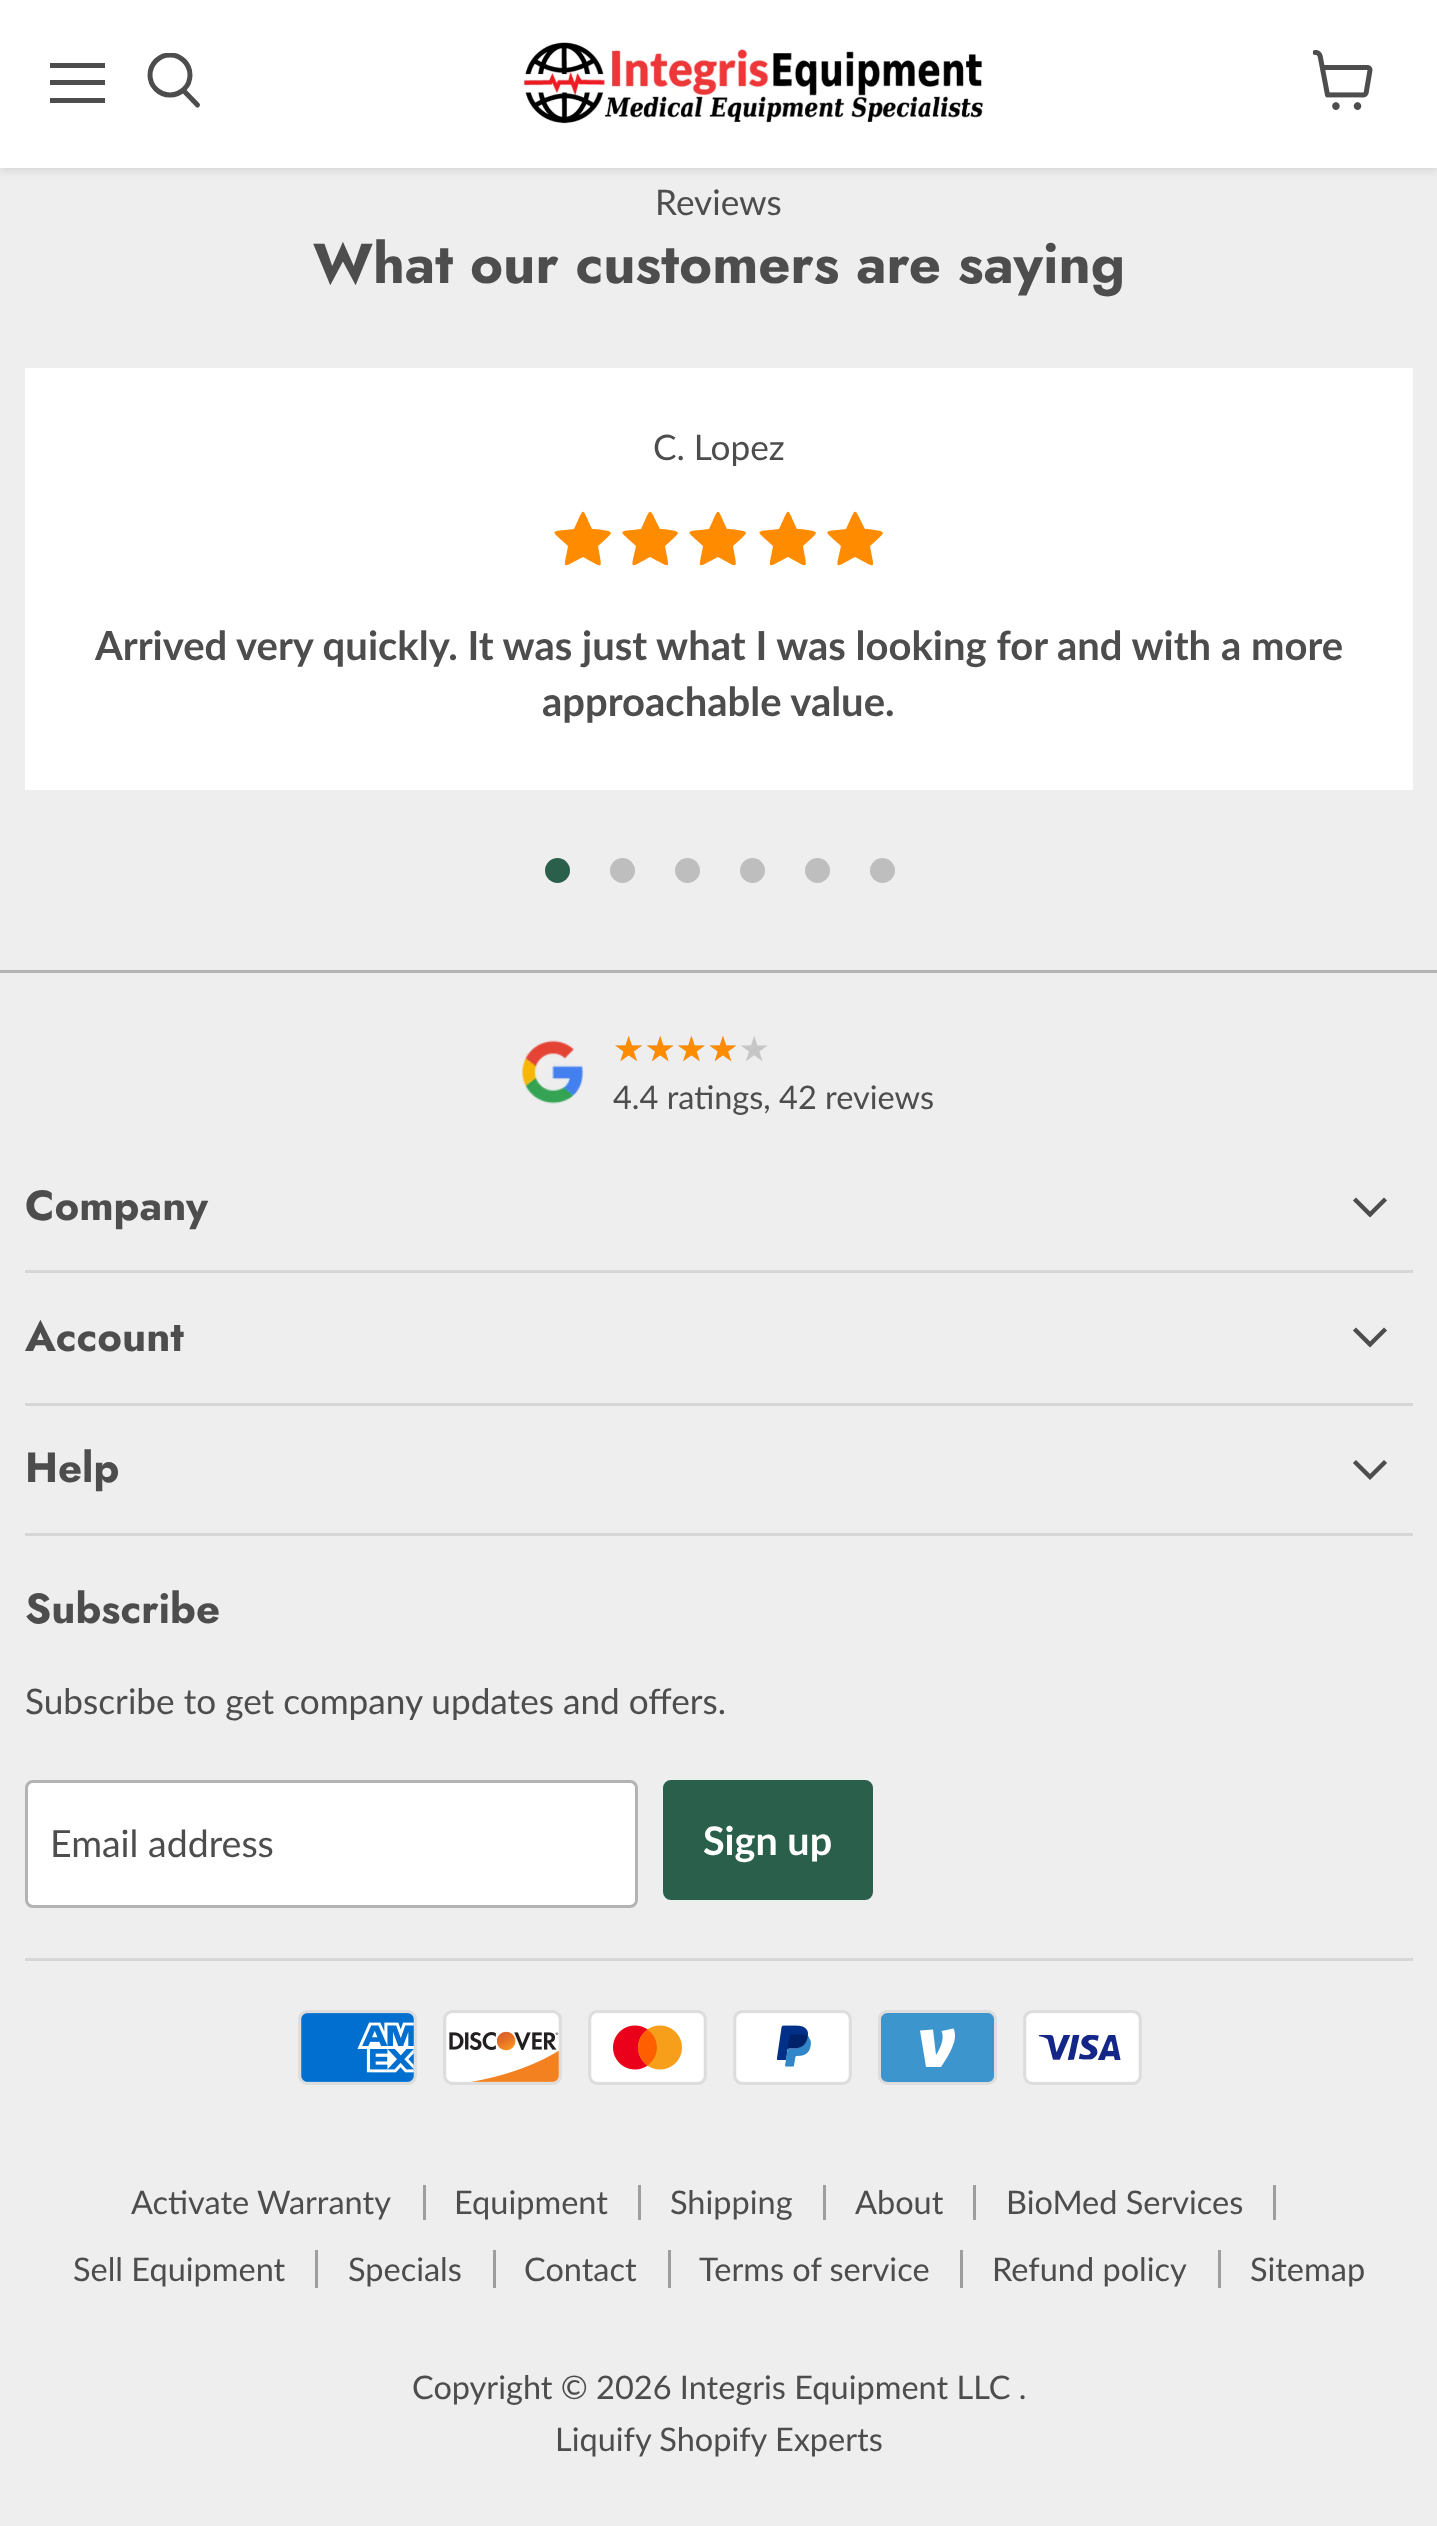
async function draw(canvas) {
  canvas.width = 1437;
  canvas.height = 2526;
  const ctx = canvas.getContext('2d');
  ctx.miterLimit = 4;
  ctx.fontKerning = 'normal';
  function label(s, x, y, font, color) {
    ctx.font = font;
    ctx.fillStyle = color;
    ctx.fillText(s, x, y);
  }
  function rect(x, y, w, h, color) {
    ctx.fillStyle = color;
    ctx.fillRect(x, y, w, h);
  }
  function roundedRect(x, y, w, h, r, color) {
    ctx.fillStyle = color;
    ctx.beginPath();
    ctx.roundRect(x, y, w, h, r);
    ctx.fill();
  }
  async function image(src, x, y, w, h) {
    const img = new Image();
    img.src = src;
    await img.decode();
    ctx.drawImage(img, x, y, w, h);
  }
  let path;

  rect(0, 0, 1437, 2526, '#eee');
  ctx.fillStyle = '#80808040';
  ctx.filter = 'blur(5px)';
  ctx.beginPath();
  ctx.rect(0, 3, 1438, 167);
  ctx.fill();
  ctx.filter = 'none';
  rect(0, 0, 1437, 168, '#fff');
  rect(50, 63, 55, 5, '#4d4d4d');
  rect(50, 80, 55, 5, '#4d4d4d');
  rect(50, 98, 55, 5, '#4d4d4d');
  path = new Path2D('M197.5 105L184 91');
  ctx.strokeStyle = '#4d4d4d';
  ctx.lineWidth = 5;
  ctx.lineCap = 'round';
  ctx.stroke(path);
  ctx.save();
  ctx.beginPath();
  ctx.rect(145, 53, 58, 60);
  ctx.clip();
  ctx.beginPath();
  ctx.arc(170, 75, 20, 0, 2 * Math.PI);
  ctx.stroke();
  ctx.restore();
  await image('assets/img1.png', 523, 42, 460, 82);
  await image('assets/img2.png', 1313, 50, 60, 60);
  label('Reviews', 655, 215, '35.2px Lato', '#4d4d4d');
  label('What our customers are saying', 313, 283, 'bold 56.25px Jost', '#4d4d4d');
  rect(25, 368, 1388, 422, '#fff');
  label('C. Lopez', 653, 460, '35.2px Lato', '#4d4d4d');
  ctx.fillStyle = '#ff8c00';
  path = new Path2D('M611 533C611 535 600 544 598 546C602 570 605 569 583 557C560 569 564 570 568 546C550 529 548 532 574 529C585 506 581 506 592 529C595 529 611 530 611 533Z');
  ctx.fill(path);
  path = new Path2D('M678 533C678 535 667 544 665 546C669 570 673 569 650 557C628 569 631 570 636 546C618 529 616 532 641 529C652 506 648 506 660 529C662 529 678 530 678 533Z');
  ctx.fill(path);
  path = new Path2D('M746 533C746 535 735 544 733 546C737 570 740 569 718 557C695 569 699 570 703 546C685 529 683 532 709 529C720 506 716 506 727 529C730 529 746 530 746 533Z');
  ctx.fill(path);
  path = new Path2D('M816 533C816 535 805 544 803 546C807 570 810 569 788 557C765 569 769 570 773 546C755 529 753 532 779 529C790 506 786 506 797 529C800 529 816 530 816 533Z');
  ctx.fill(path);
  path = new Path2D('M883 533C883 535 872 544 870 546C874 570 878 569 855 557C833 569 836 570 841 546C823 529 821 532 846 529C857 506 853 506 865 529C867 529 883 530 883 533Z');
  ctx.fill(path);
  label('Arrived very quickly. It was just what I was looking for and with a more', 95, 660, 'bold 40px Lato', '#4d4d4d');
  label('approachable value.', 542, 716, 'bold 40px Lato', '#4d4d4d');
  ctx.fillStyle = '#2a604b';
  ctx.beginPath();
  ctx.arc(557.5, 870.5, 12.5, 0, 2 * Math.PI);
  ctx.fill();
  ctx.fillStyle = '#bebebe';
  ctx.beginPath();
  ctx.arc(622.5, 870.5, 12.5, 0, 2 * Math.PI);
  ctx.fill();
  ctx.beginPath();
  ctx.arc(687.5, 870.5, 12.5, 0, 2 * Math.PI);
  ctx.fill();
  ctx.beginPath();
  ctx.arc(752.5, 870.5, 12.5, 0, 2 * Math.PI);
  ctx.fill();
  ctx.beginPath();
  ctx.arc(817.5, 870.5, 12.5, 0, 2 * Math.PI);
  ctx.fill();
  ctx.beginPath();
  ctx.arc(882.5, 870.5, 12.5, 0, 2 * Math.PI);
  ctx.fill();
  rect(0, 970, 1437, 3, '#b3b3b3');
  await image('assets/img3.png', 521, 1040, 63, 64);
  label('★★★★★', 613, 1061, '35px DejaVu Sans', '#c6c6c6');
  label('★★★★', 613, 1061, '35px DejaVu Sans', '#ff8c00');
  label('4.4 ratings, 42 reviews', 613, 1109, '32.5px Lato', '#4d4d4d');
  rect(25, 1270, 1388, 3, '#d6d6d6');
  label('Company', 25, 1220, 'bold 42px Jost', '#4d4d4d');
  path = new Path2D('M1370 1214.5L1384 1200.5M1370 1214.5L1356 1200.5');
  ctx.lineWidth = 4.4;
  ctx.lineCap = 'square';
  ctx.stroke(path);
  rect(25, 1403, 1388, 3, '#d6d6d6');
  label('Account', 25, 1351, 'bold 42px Jost', '#4d4d4d');
  path = new Path2D('M1370 1344.5L1384 1330.5M1370 1344.5L1356 1330.5');
  ctx.stroke(path);
  rect(25, 1533, 1388, 3, '#d6d6d6');
  label('Help', 25, 1482, 'bold 42px Jost', '#4d4d4d');
  path = new Path2D('M1370 1477L1384 1463M1370 1477L1356 1463');
  ctx.stroke(path);
  rect(25, 1958, 1388, 3, '#d6d6d6');
  label('Subscribe', 25, 1623, 'bold 42px Jost', '#4d4d4d');
  label('Subscribe to get company updates and offers.', 25, 1714, '35.2px Lato', '#4d4d4d');
  ctx.fillStyle = '#fff';
  ctx.beginPath();
  ctx.roundRect(26.5, 1781.5, 610, 125, 6.5);
  ctx.fill();
  ctx.strokeStyle = '#b3b3b3';
  ctx.lineWidth = 3;
  ctx.stroke();
  label('Email address', 50, 1857, '37.5px Lato', '#4d4d4d');
  ctx.fillStyle = '#2a604b';
  ctx.beginPath();
  ctx.roundRect(664.5, 1781.5, 207, 117, 6.5);
  ctx.fill();
  ctx.strokeStyle = '#2a604b';
  ctx.stroke();
  label('Sign up', 703, 1855, 'bold 39.5px Lato', '#fff');
  await image('assets/img4.png', 298, 2010, 119, 75);
  await image('assets/img5.png', 443, 2010, 119, 75);
  await image('assets/img6.png', 588, 2010, 119, 75);
  await image('assets/img7.png', 733, 2010, 119, 75);
  roundedRect(878, 2010, 119, 75, 9, '#ddd');
  ctx.fillStyle = '#3d95ce';
  path = new Path2D('M988 2013C991 2013 994 2016 994 2019V2076C994 2079 991 2082 988 2082H888C884 2082 881 2079 881 2076V2019C881 2016 884 2013 888 2013H988');
  ctx.fill(path, 'evenodd');
  ctx.fillStyle = '#fff';
  path = new Path2D('M955 2036C955 2045.5 947 2058 941 2067H926L920 2030.5L933 2029.5L936 2055C940 2048.5 945 2039 941.5 2031L953.5 2028.5C954.5 2030.5 955 2033 955 2036Z');
  ctx.fill(path);
  await image('assets/img8.png', 1023, 2010, 119, 75);
  rect(423, 2185, 3, 35, '#9e9e9e');
  label('Activate Warranty', 131, 2214, '32.5px Lato', '#4d4d4d');
  rect(638, 2185, 3, 35, '#9e9e9e');
  label('Equipment', 454, 2214, '32.5px Lato', '#4d4d4d');
  rect(823, 2185, 3, 35, '#9e9e9e');
  label('Shipping', 670, 2214, '32.5px Lato', '#4d4d4d');
  rect(973, 2185, 3, 35, '#9e9e9e');
  label('About', 855, 2214, '32.5px Lato', '#4d4d4d');
  rect(1273, 2185, 3, 35, '#9e9e9e');
  label('BioMed Services', 1006, 2214, '32.5px Lato', '#4d4d4d');
  rect(315, 2250, 3, 38, '#9e9e9e');
  label('Sell Equipment', 73, 2281, '32.5px Lato', '#4d4d4d');
  rect(493, 2250, 3, 38, '#9e9e9e');
  label('Specials', 348, 2281, '32.5px Lato', '#4d4d4d');
  rect(668, 2250, 3, 38, '#9e9e9e');
  label('Contact', 524, 2281, '32.5px Lato', '#4d4d4d');
  rect(960, 2250, 3, 38, '#9e9e9e');
  label('Terms of service', 699, 2281, '32.5px Lato', '#4d4d4d');
  rect(1218, 2250, 3, 38, '#9e9e9e');
  label('Refund policy', 992, 2281, '32.5px Lato', '#4d4d4d');
  label('Sitemap', 1250, 2281, '32.5px Lato', '#4d4d4d');
  label('Copyright © 2026 Integris Equipment LLC .', 412, 2399, '32.5px Lato', '#4d4d4d');
  label('Liquify Shopify Experts', 555, 2451, '32.5px Lato', '#4d4d4d');
}

draw(document.querySelector('canvas'));
